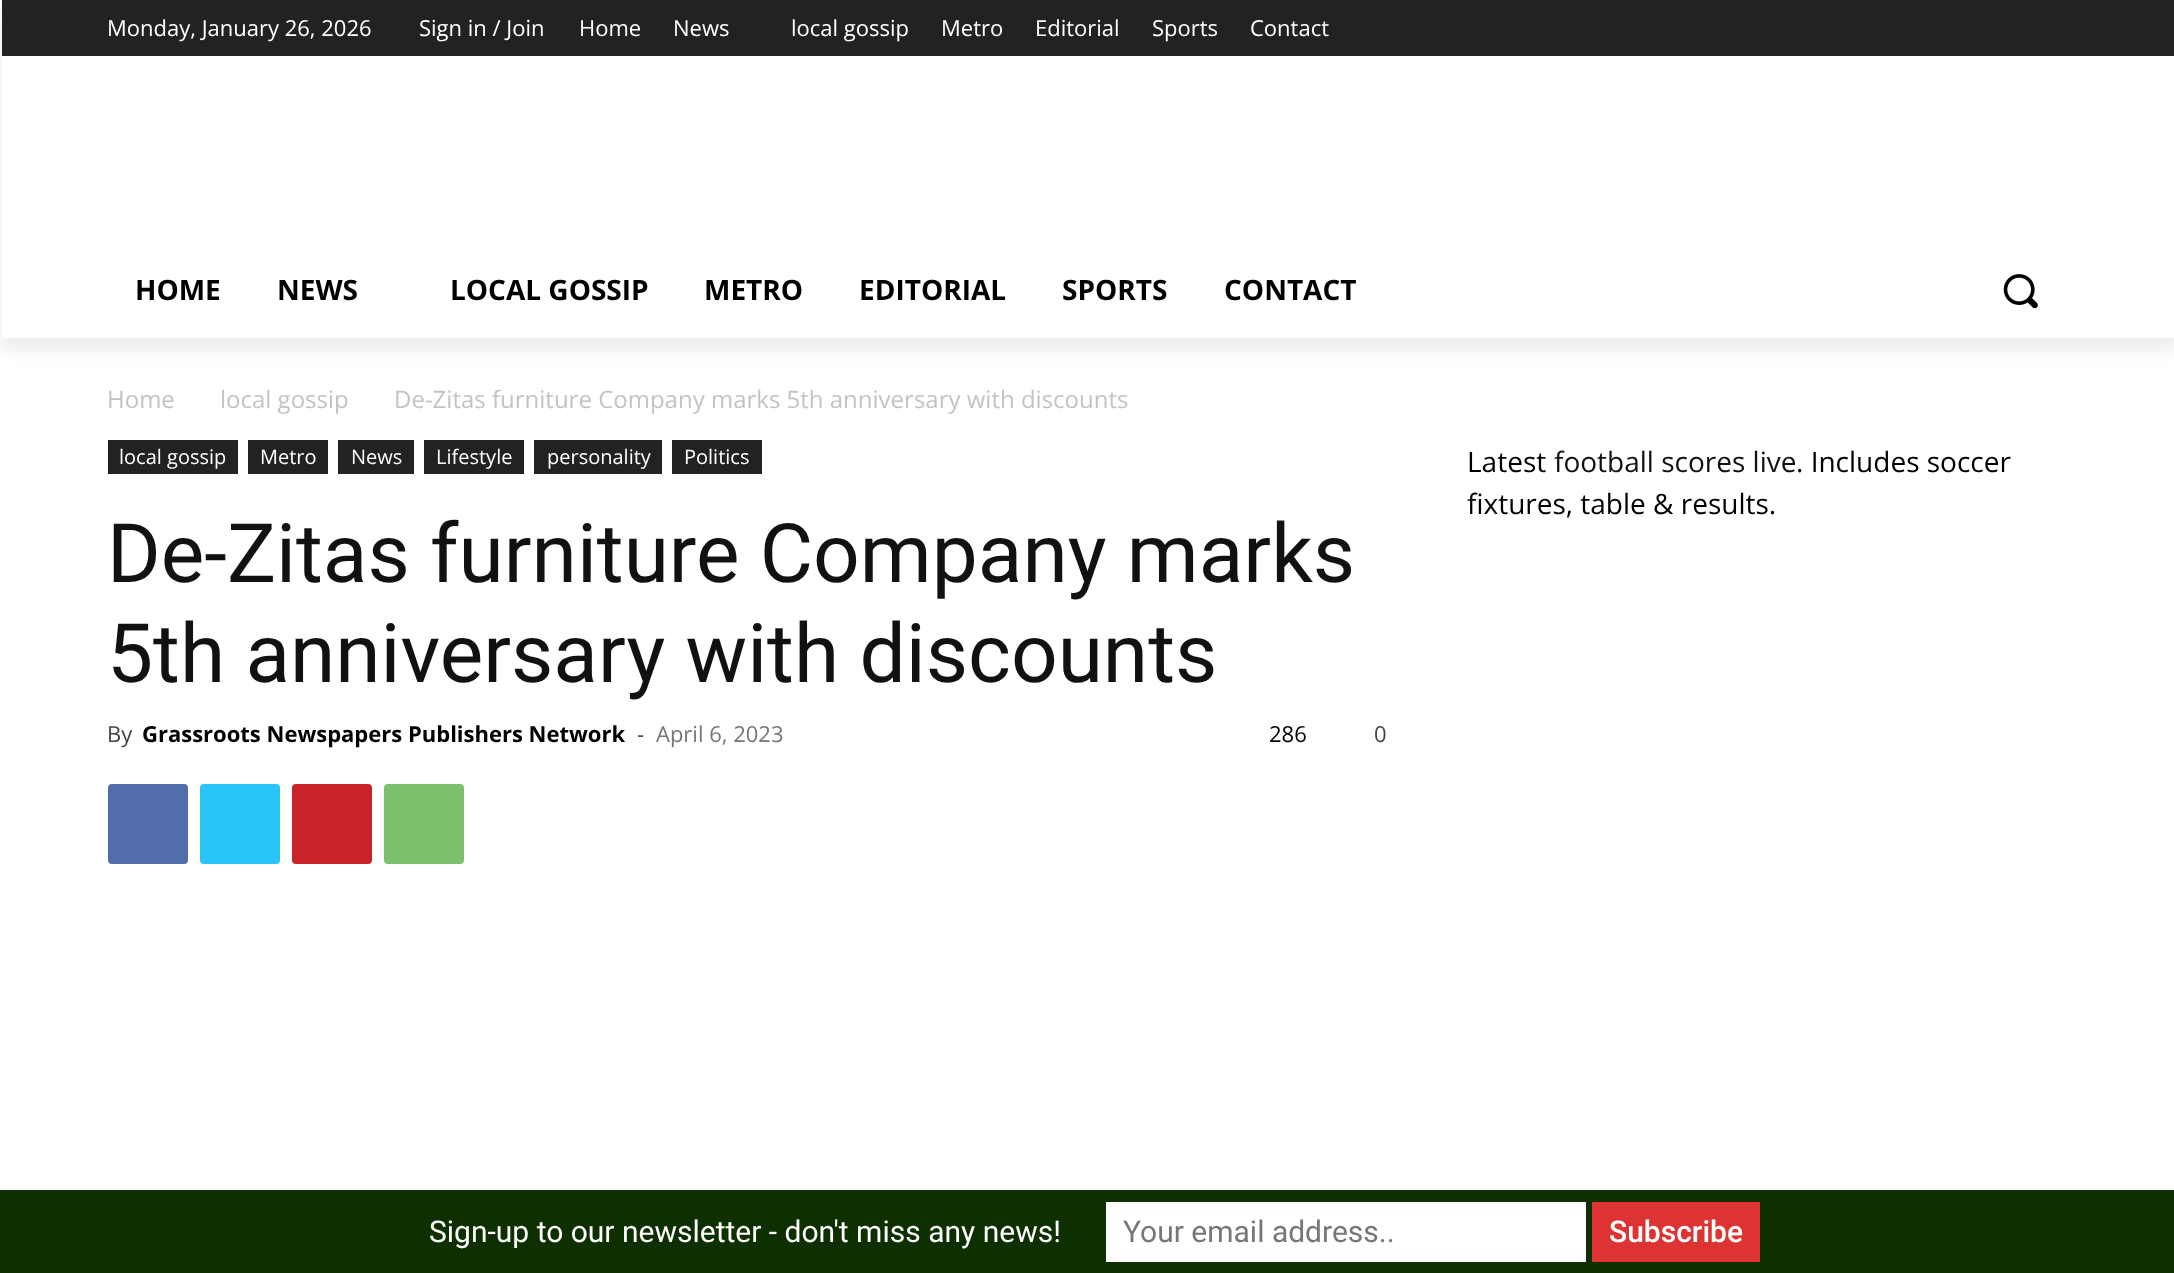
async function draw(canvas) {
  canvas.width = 2174;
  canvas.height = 1273;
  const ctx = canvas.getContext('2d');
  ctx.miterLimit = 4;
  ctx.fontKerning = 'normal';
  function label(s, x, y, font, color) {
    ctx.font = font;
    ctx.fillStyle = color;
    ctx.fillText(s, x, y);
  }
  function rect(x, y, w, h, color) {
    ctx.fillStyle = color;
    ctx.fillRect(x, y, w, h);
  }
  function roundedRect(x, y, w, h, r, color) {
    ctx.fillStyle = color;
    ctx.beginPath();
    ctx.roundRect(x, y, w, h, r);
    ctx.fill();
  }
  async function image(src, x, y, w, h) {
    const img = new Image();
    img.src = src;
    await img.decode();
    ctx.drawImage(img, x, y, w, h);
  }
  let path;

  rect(0, 0, 2174, 1273, '#fff');
  rect(2, 0, 2172, 56, '#222');
  ctx.save();
  path = new Path2D('M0 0H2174V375H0ZM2 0H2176V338H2Z');
  ctx.clip(path, 'evenodd');
  ctx.fillStyle = '#00000014';
  ctx.filter = 'blur(8px)';
  ctx.beginPath();
  ctx.rect(2, 12, 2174, 338);
  ctx.fill();
  ctx.filter = 'none';
  ctx.restore();
  label('Monday, January 26, 2026', 107, 36, '22px Open Sans', '#fff');
  label('Sign in / Join', 419, 36, '22px Open Sans', '#fff');
  label('Home', 579, 36, '22px Open Sans', '#fff');
  label('News', 673, 36, '22px Open Sans', '#fff');
  label('local gossip', 791, 36, '22px Open Sans', '#fff');
  label('Metro', 941, 36, '22px Open Sans', '#fff');
  label('Editorial', 1035, 36, '22px Open Sans', '#fff');
  label('Sports', 1152, 36, '22px Open Sans', '#fff');
  label('Contact', 1250, 36, '22px Open Sans', '#fff');
  label('HOME', 135, 300, 'bold 28px Open Sans', '#000');
  label('NEWS', 277, 300, 'bold 28px Open Sans', '#000');
  label('LOCAL GOSSIP', 450, 300, 'bold 28px Open Sans', '#000');
  label('METRO', 704, 300, 'bold 28px Open Sans', '#000');
  label('EDITORIAL', 859, 300, 'bold 28px Open Sans', '#000');
  label('SPORTS', 1062, 300, 'bold 28px Open Sans', '#000');
  label('CONTACT', 1224, 300, 'bold 28px Open Sans', '#000');
  await image('assets/img1.png', 2003, 274, 35, 35);
  label('Home', 107, 408, '24px Open Sans', '#c3c3c3');
  label('local gossip', 220, 408, '24px Open Sans', '#c3c3c3');
  label('De-Zitas furniture Company marks 5th anniversary with discounts', 394, 408, '24px Open Sans', '#c3c3c3');
  rect(108, 440, 130, 34, '#222');
  label('local gossip', 119, 464, '20px Open Sans', '#fff');
  rect(248, 440, 80, 34, '#222');
  label('Metro', 260, 464, '20px Open Sans', '#fff');
  rect(338, 440, 76, 34, '#222');
  label('News', 351, 464, '20px Open Sans', '#fff');
  rect(424, 440, 100, 34, '#222');
  label('Lifestyle', 436, 464, '20px Open Sans', '#fff');
  rect(534, 440, 128, 34, '#222');
  label('personality', 547, 464, '20px Open Sans', '#fff');
  rect(672, 440, 90, 34, '#222');
  label('Politics', 684, 464, '20px Open Sans', '#fff');
  label('De-Zitas furniture Company marks', 107, 582, '82px Roboto', '#111');
  label('5th anniversary with discounts', 107, 682, '82px Roboto', '#111');
  label('By', 107, 742, '22px Open Sans', '#444');
  label('Grassroots Newspapers Publishers Network', 142, 742, 'bold 22px Open Sans', '#000');
  label('-', 637, 742, '22px Open Sans', '#444');
  label('April 6, 2023', 656, 742, '22px Open Sans', '#767676');
  label('286', 1269, 742, '22px Open Sans', '#000');
  label('0', 1374, 742, '22px Open Sans', '#444');
  roundedRect(108, 784, 80, 80, 4, '#516eab');
  roundedRect(200, 784, 80, 80, 4, '#29c5f6');
  roundedRect(292, 784, 80, 80, 4, '#ca212a');
  roundedRect(384, 784, 80, 80, 4, '#7bbf6a');
  label('Latest', 1467, 472, '28px Open Sans', '#000');
  label('football scores live', 1554, 472, '28px Open Sans', '#111');
  label('. Includes soccer', 1796, 472, '28px Open Sans', '#000');
  label('fixtures, table & results.', 1467, 514, '28px Open Sans', '#000');
  rect(0, 1190, 2174, 83, '#0e3000');
  label('Sign-up to our newsletter - don\'t miss any news!', 429, 1242, '30px Roboto', '#fff');
  rect(1106, 1202, 480, 60, '#fff');
  label('Your email address..', 1123, 1242, '30px Roboto', '#767676');
  rect(1592, 1202, 168, 60, '#d33');
  label('Subscribe', 1609, 1242, '500 30px Roboto', '#fff');
}

draw(document.querySelector('canvas'));
